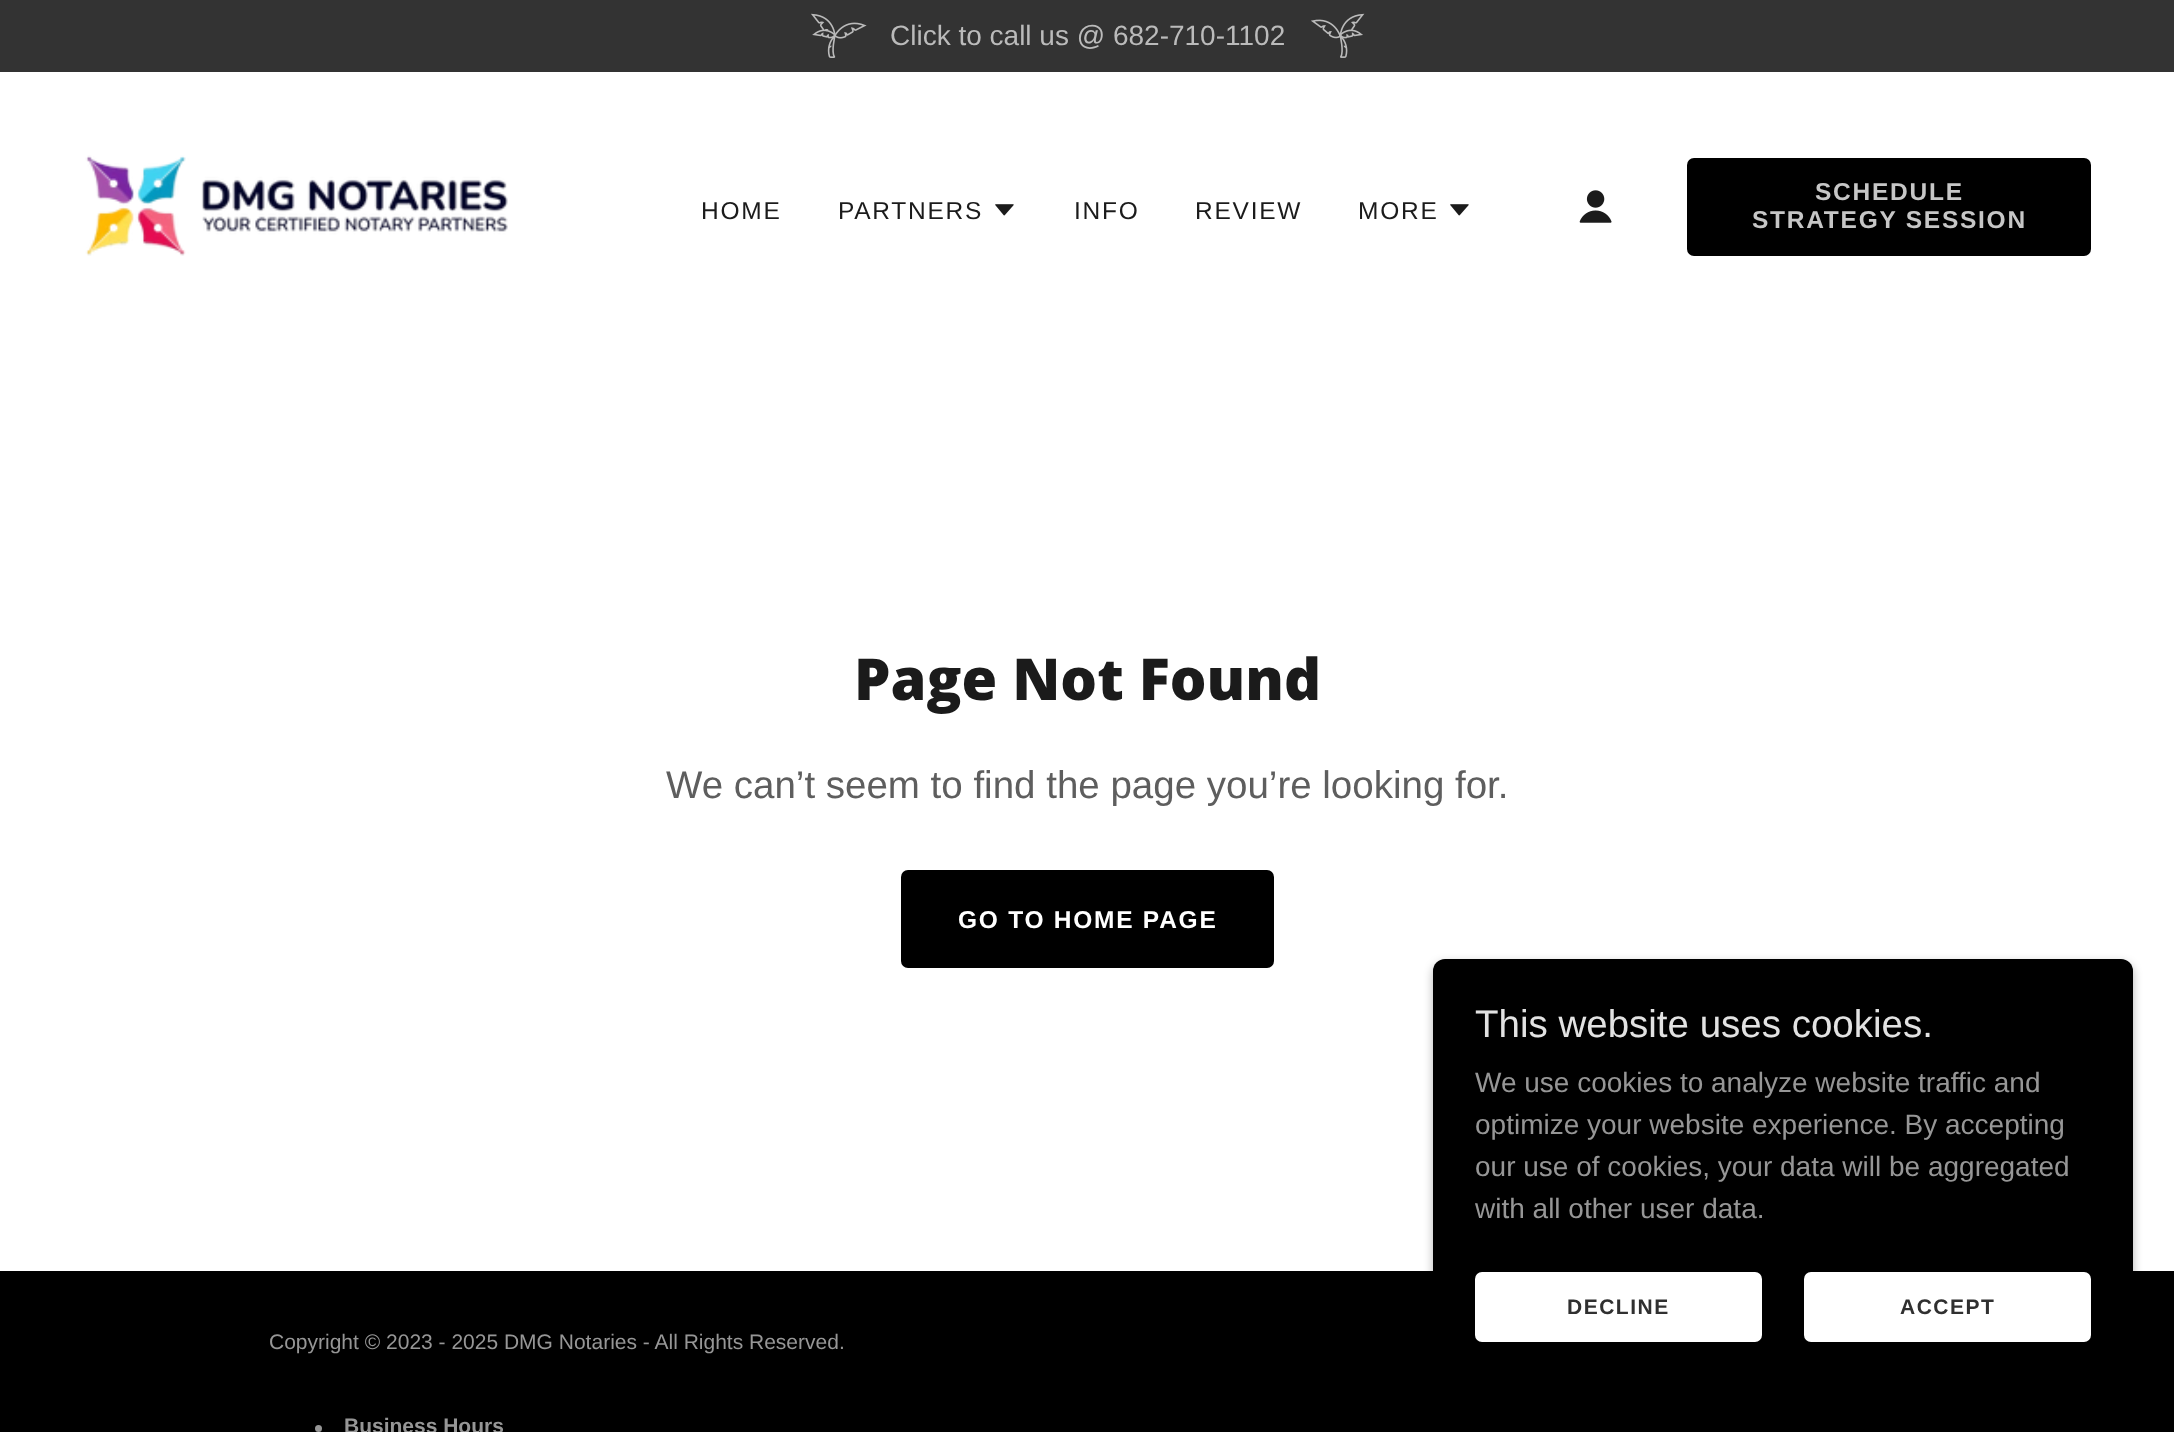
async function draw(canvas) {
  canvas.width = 2174;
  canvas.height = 1432;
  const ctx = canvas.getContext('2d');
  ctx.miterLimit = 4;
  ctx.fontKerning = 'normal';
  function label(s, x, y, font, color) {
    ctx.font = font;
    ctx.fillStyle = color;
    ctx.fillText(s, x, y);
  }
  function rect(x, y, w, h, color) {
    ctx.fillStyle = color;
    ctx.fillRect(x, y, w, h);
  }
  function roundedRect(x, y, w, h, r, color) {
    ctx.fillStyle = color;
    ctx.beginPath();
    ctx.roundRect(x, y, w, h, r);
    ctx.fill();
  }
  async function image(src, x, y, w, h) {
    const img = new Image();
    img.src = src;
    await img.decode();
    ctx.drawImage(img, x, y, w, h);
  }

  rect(0, 0, 2174, 1432, '#000');
  rect(0, 72, 2174, 1199, '#fff');
  rect(0, 0, 2174, 72, '#333');
  await image('assets/img1.png', 811, 13, 56, 45);
  label('Click to call us @ 682-710-1102', 890, 45, '28px Liberation Sans', '#bbb');
  await image('assets/img2.png', 1311, 13, 54, 45);
  await image('assets/img3.png', 85, 155, 423, 101);
  ctx.letterSpacing = '1.75px';
  label('HOME', 701, 219, '24.5px Liberation Sans', '#1b1b1b');
  label('PARTNERS', 838, 219, '24.5px Liberation Sans', '#1b1b1b');
  await image('assets/img4.png', 995, 204, 19, 12);
  label('INFO', 1074, 219, '24.5px Liberation Sans', '#1b1b1b');
  label('REVIEW', 1195, 219, '24.5px Liberation Sans', '#1b1b1b');
  label('MORE', 1358, 219, '24.5px Liberation Sans', '#1b1b1b');
  await image('assets/img4.png', 1450, 204, 19, 12);
  await image('assets/img5.png', 1579, 190, 33, 33);
  roundedRect(1687, 158, 404, 98, 7, '#000');
  label('SCHEDULE', 1815, 200, 'bold 24.5px Liberation Sans', '#c6c6c6');
  label('STRATEGY SESSION', 1752, 228, 'bold 24.5px Liberation Sans', '#c6c6c6');
  ctx.letterSpacing = '0px';
  label('Page Not Found', 854, 700, '800 57.75px Open Sans', '#1b1b1b');
  label('We can’t seem to find the page you’re looking for.', 666, 798, '38.5px Liberation Sans', '#5e5e5e');
  roundedRect(901, 870, 373, 98, 7, '#000');
  ctx.letterSpacing = '1.75px';
  label('GO TO HOME PAGE', 958, 928, 'bold 24.5px Liberation Sans', '#fff');
  ctx.fillStyle = '#0000004d';
  ctx.filter = 'blur(5px)';
  ctx.beginPath();
  ctx.roundRect(1433, 963, 700, 432, 12);
  ctx.fill();
  ctx.filter = 'none';
  roundedRect(1433, 959, 700, 432, 12, '#000');
  ctx.letterSpacing = '0px';
  label('This website uses cookies.', 1475, 1037, '38.5px Liberation Sans', '#e2e2e2');
  label('We use cookies to analyze website traffic and', 1475, 1092, '28px Liberation Sans', '#969696');
  label('optimize your website experience. By accepting', 1475, 1134, '28px Liberation Sans', '#969696');
  label('our use of cookies, your data will be aggregated', 1475, 1176, '28px Liberation Sans', '#969696');
  label('with all other user data.', 1475, 1218, '28px Liberation Sans', '#969696');
  roundedRect(1475, 1272, 287, 70, 7, '#fff');
  ctx.letterSpacing = '1.5px';
  label('DECLINE', 1567, 1314, 'bold 21px Liberation Sans', '#303030');
  roundedRect(1804, 1272, 287, 70, 7, '#fff');
  label('ACCEPT', 1900, 1314, 'bold 21px Liberation Sans', '#303030');
  ctx.letterSpacing = '0px';
  label('Copyright © 2023 - 2025 DMG Notaries - All Rights Reserved.', 269, 1349, '21px Liberation Sans', '#969696');
  ctx.beginPath();
  ctx.arc(318.5, 1428.5, 3.5, 0, 2 * Math.PI);
  ctx.fill();
  label('Business Hours', 344, 1433, 'bold 21px Liberation Sans', '#969696');
}

draw(document.querySelector('canvas'));
